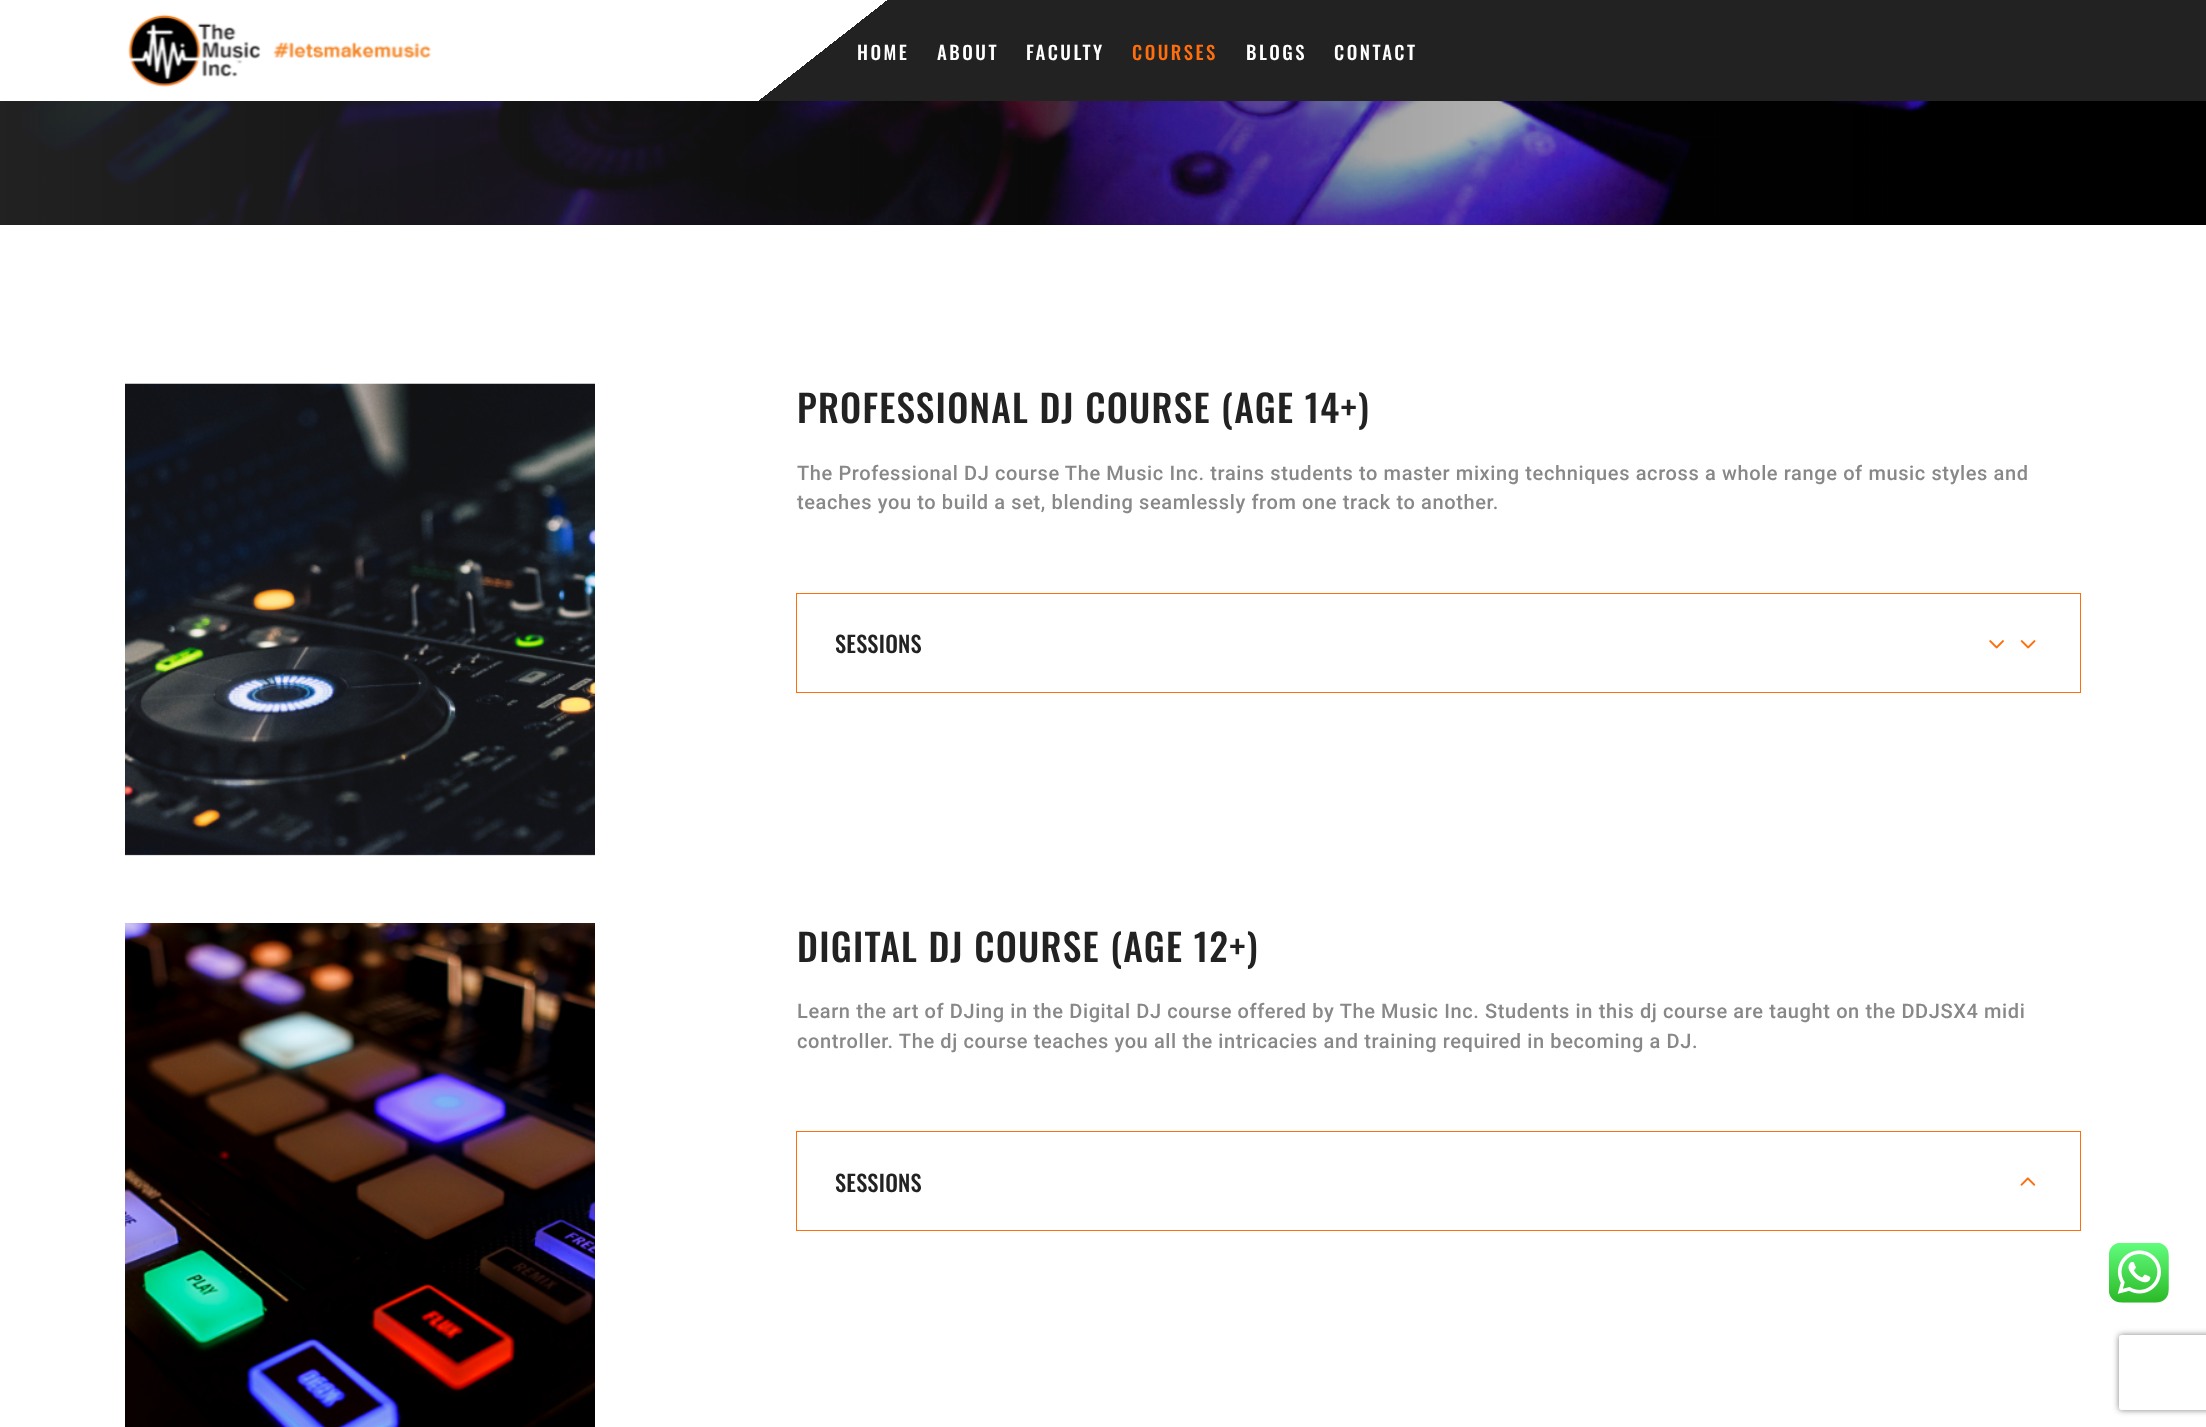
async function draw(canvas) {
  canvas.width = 2206;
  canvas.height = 1427;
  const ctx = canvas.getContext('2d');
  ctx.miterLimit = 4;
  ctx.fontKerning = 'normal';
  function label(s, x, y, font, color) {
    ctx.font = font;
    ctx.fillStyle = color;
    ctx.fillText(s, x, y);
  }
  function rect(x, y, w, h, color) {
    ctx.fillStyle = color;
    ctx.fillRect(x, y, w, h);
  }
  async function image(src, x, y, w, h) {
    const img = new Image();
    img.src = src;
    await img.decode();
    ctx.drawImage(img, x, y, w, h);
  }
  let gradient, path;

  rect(0, 0, 2206, 1427, '#fff');
  gradient = ctx.createLinearGradient(660, -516, 1546, 617);
  gradient.addColorStop(0.38, '#fff');
  gradient.addColorStop(0.38, '#222');
  ctx.fillStyle = gradient;
  ctx.fillRect(759, 0, 1447, 101);
  await image('assets/img1.png', 128, 14, 304, 73);
  ctx.letterSpacing = '2.5px';
  label('HOME', 857, 60, '500 18.75px Oswald', '#fff');
  label('ABOUT', 937, 60, '500 18.75px Oswald', '#fff');
  label('FACULTY', 1026, 60, '500 18.75px Oswald', '#fff');
  label('COURSES', 1132, 60, '500 18.75px Oswald', '#ff6e0d');
  label('BLOGS', 1246, 60, '500 18.75px Oswald', '#fff');
  label('CONTACT', 1334, 60, '500 18.75px Oswald', '#fff');
  await image('assets/img2.png', 0, 101, 2206, 124);
  await image('assets/img3.png', 125, 383, 470, 473);
  ctx.letterSpacing = '1.25px';
  label('PROFESSIONAL DJ COURSE (AGE 14+)', 797, 423, '500 37.5px Oswald', '#222');
  ctx.letterSpacing = '0.62px';
  label('The Professional DJ course The Music Inc. trains students to master mixing techniques across a whole range of music styles and', 797, 480, '500 20px Roboto', '#888');
  label('teaches you to build a set, blending seamlessly from one track to another.', 797, 509, '500 20px Roboto', '#888');
  ctx.strokeStyle = '#ff6e0d';
  ctx.strokeRect(796.5, 593.5, 1284, 99);
  ctx.letterSpacing = '0.25px';
  label('SESSIONS', 835, 653, '500 22.5px Oswald', '#222');
  await image('assets/img4.png', 1989, 640, 47, 9);
  await image('assets/img5.png', 125, 923, 470, 504);
  ctx.letterSpacing = '1.25px';
  label('DIGITAL DJ COURSE (AGE 12+)', 797, 962, '500 37.5px Oswald', '#222');
  ctx.letterSpacing = '0.62px';
  label('Learn the art of DJing in the Digital DJ course offered by The Music Inc. Students in this dj course are taught on the DDJSX4 midi', 797, 1018, '500 20px Roboto', '#888');
  label('controller. The dj course teaches you all the intricacies and training required in becoming a DJ.', 797, 1048, '500 20px Roboto', '#888');
  ctx.strokeRect(796.5, 1131.5, 1284, 99);
  ctx.letterSpacing = '0.25px';
  label('SESSIONS', 835, 1192, '500 22.5px Oswald', '#222');
  await image('assets/img6.png', 2020, 1177, 16, 9);
  await image('assets/img7.png', 2109, 1243, 60, 60);
  ctx.save();
  path = new Path2D('M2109 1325H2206V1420H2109ZM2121.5 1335H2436.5C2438 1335 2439 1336 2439 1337.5V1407.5C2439 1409 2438 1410 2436.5 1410H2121.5C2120 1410 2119 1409 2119 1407.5V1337.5C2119 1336 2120 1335 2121.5 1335Z');
  ctx.clip(path, 'evenodd');
  ctx.fillStyle = '#808080';
  ctx.filter = 'blur(3px)';
  ctx.beginPath();
  ctx.roundRect(2119, 1335, 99, 75, 2.5);
  ctx.fill();
  ctx.filter = 'none';
  ctx.restore();
}

draw(document.querySelector('canvas'));
